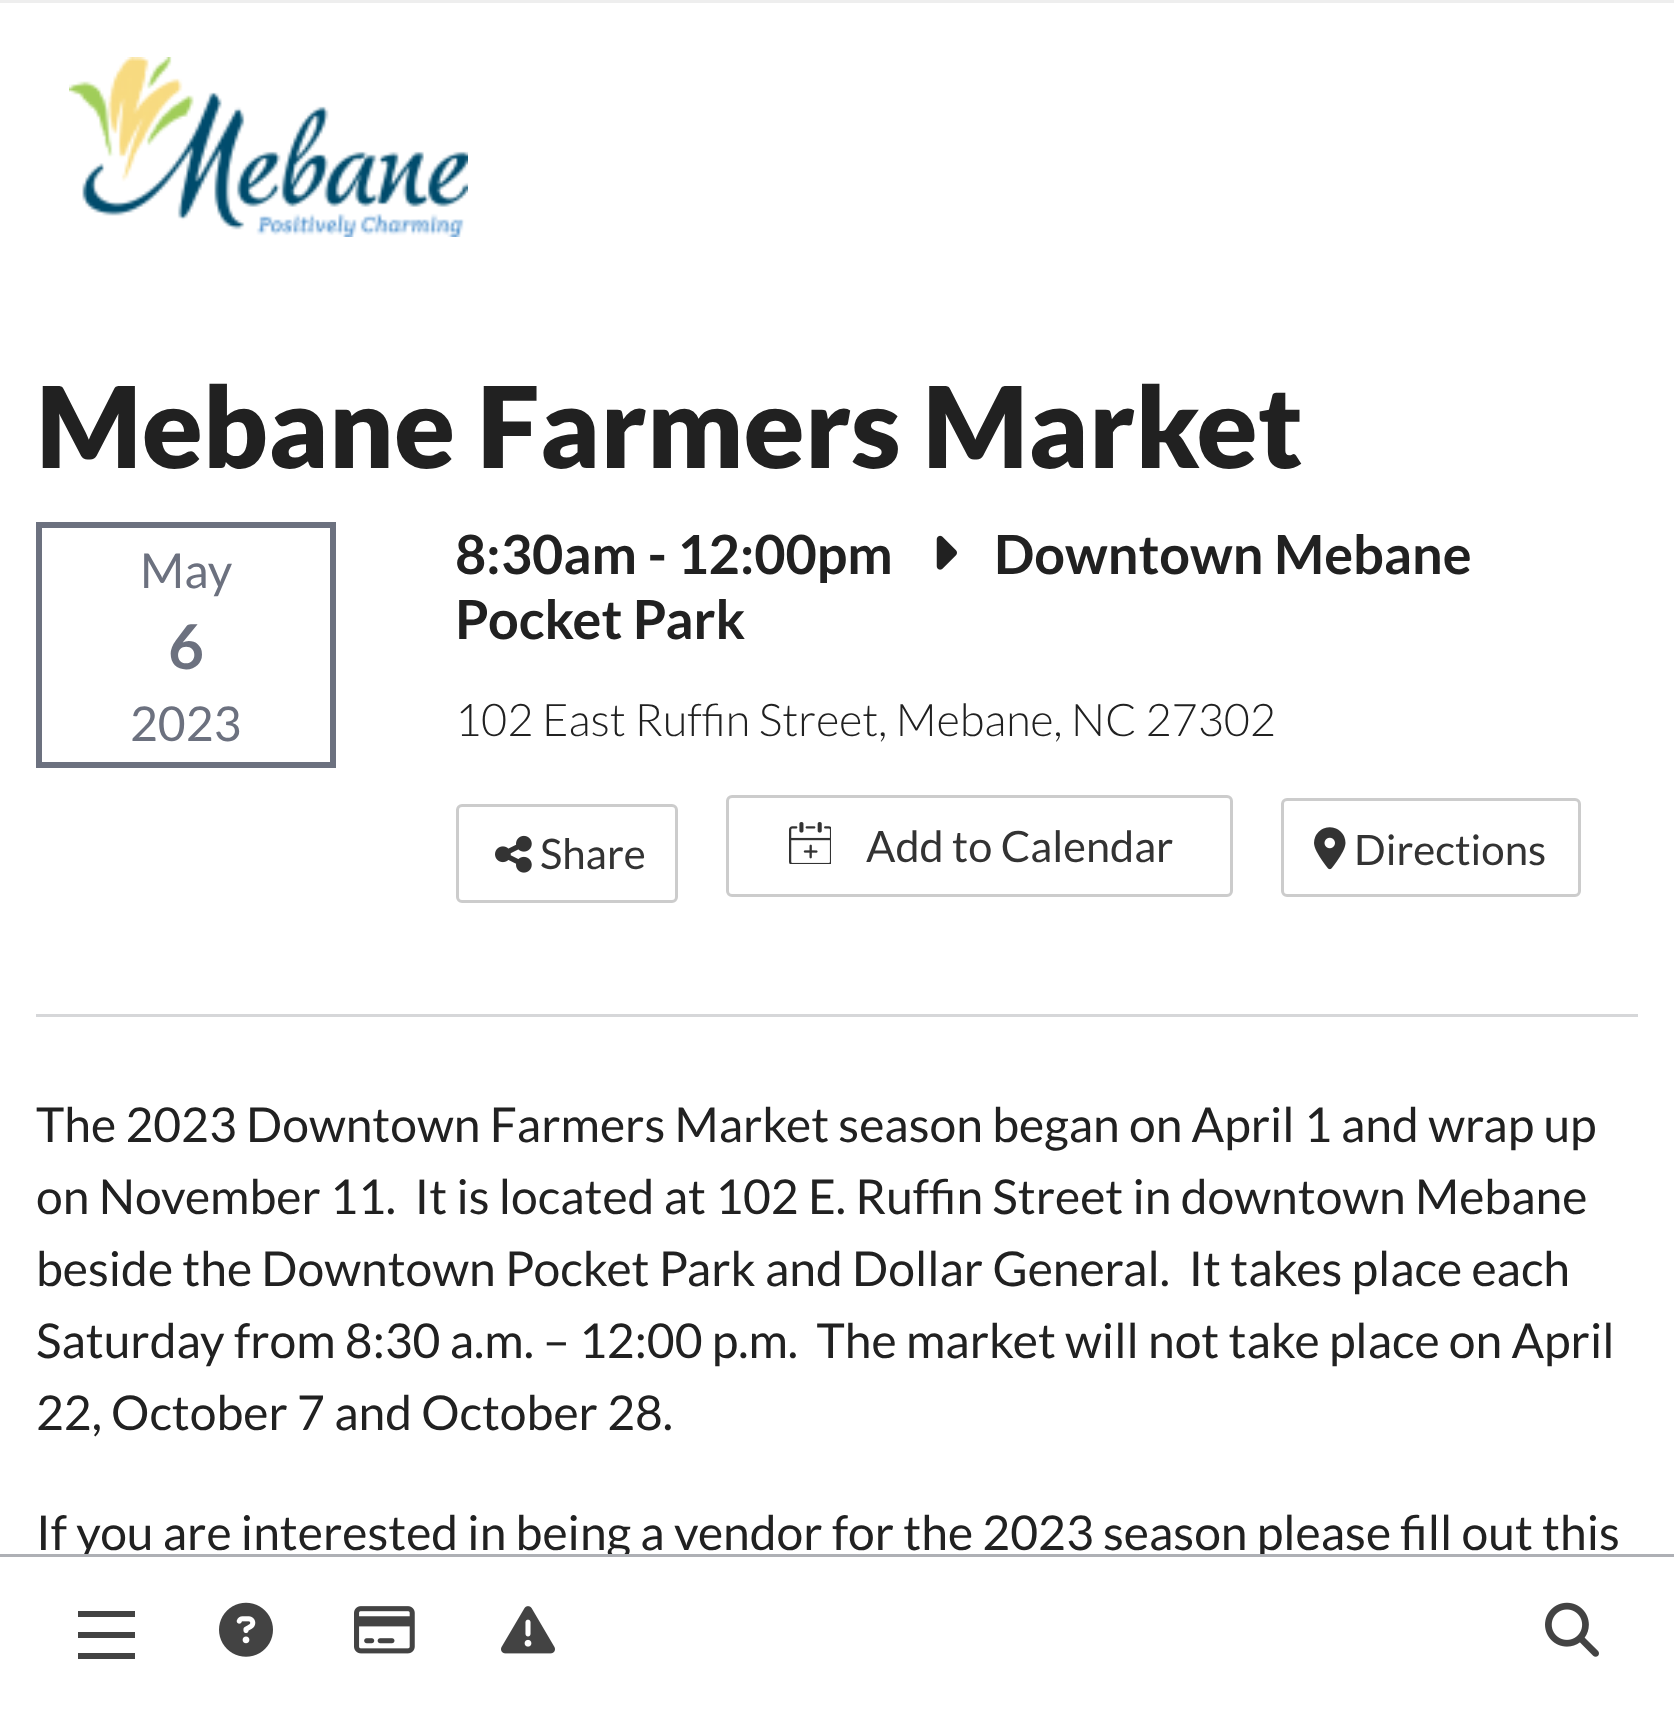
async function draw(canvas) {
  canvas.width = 1674;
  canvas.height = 1709;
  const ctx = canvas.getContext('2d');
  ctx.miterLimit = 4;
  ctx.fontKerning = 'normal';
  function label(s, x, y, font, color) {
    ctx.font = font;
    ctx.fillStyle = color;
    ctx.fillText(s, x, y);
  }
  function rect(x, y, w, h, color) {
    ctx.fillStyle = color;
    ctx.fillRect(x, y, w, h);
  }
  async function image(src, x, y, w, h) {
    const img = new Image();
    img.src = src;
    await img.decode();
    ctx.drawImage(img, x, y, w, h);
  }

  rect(0, 0, 1674, 1709, '#fff');
  rect(0, 0, 1674, 3, '#eee');
  label('If you are interested in being a vendor for the 2023 season please fill out this', 36, 1550, '48px Lato', '#212121');
  rect(82, 1557, 1183, 2, '#fff');
  rect(0, 1554, 1674, 3, '#aeb0b5');
  await image('assets/img1.png', 219, 1602, 54, 55);
  await image('assets/img2.png', 354, 1606, 61, 48);
  await image('assets/img3.png', 501, 1606, 54, 48);
  await image('assets/img4.png', 1545, 1602, 54, 55);
  rect(78, 1632, 57, 6, '#434343');
  rect(78, 1611, 57, 6, '#434343');
  rect(78, 1653, 57, 6, '#434343');
  await image('assets/img5.png', 69, 57, 399, 180);
  label('Mebane Farmers Market', 36, 468, '900 112.5px Lato', '#212121');
  ctx.strokeStyle = '#6c717f';
  ctx.lineWidth = 6;
  ctx.strokeRect(39, 525, 294, 240);
  label('May', 140, 588, '48px Lato', '#6c717f');
  label('6', 168, 669, 'bold 62px Lato', '#6c717f');
  label('2023', 130, 741, '48px Lato', '#6c717f');
  label('8:30am - 12:00pm', 455, 574, 'bold 54px Lato', '#212121');
  await image('assets/img6.png', 936, 535, 21, 35);
  label('Downtown Mebane', 994, 574, 'bold 54px Lato', '#212121');
  label('Pocket Park', 455, 639, 'bold 54px Lato', '#212121');
  label('102 East Ruffin Street, Mebane, NC 27302', 455, 736, '300 45px Lato', '#212121');
  ctx.beginPath();
  ctx.roundRect(457.5, 805.5, 219, 96, 4.5);
  ctx.strokeStyle = '#ccc';
  ctx.lineWidth = 3;
  ctx.stroke();
  await image('assets/img7.png', 495, 835, 37, 38);
  label('Share', 540, 869, '42px Lato', '#333');
  ctx.beginPath();
  ctx.roundRect(727.5, 796.5, 504, 99, 4.5);
  ctx.stroke();
  await image('assets/img8.png', 789, 822, 42, 42);
  label('Add to Calendar', 866, 862, '43.25px Lato', '#333');
  ctx.beginPath();
  ctx.roundRect(1282.5, 799.5, 297, 96, 4.5);
  ctx.stroke();
  await image('assets/img9.png', 1314, 827, 32, 43);
  label('Directions', 1354, 865, '42px Lato', '#333');
  rect(36, 1014, 1602, 3, '#d6d7d9');
  label('The 2023 Downtown Farmers Market season began on April 1 and wrap up', 36, 1142, '48px Lato', '#212121');
  label('on November 11.  It is located at 102 E. Ruffin Street in downtown Mebane', 36, 1214, '48px Lato', '#212121');
  label('beside the Downtown Pocket Park and Dollar General.  It takes place each', 36, 1286, '48px Lato', '#212121');
  label('Saturday from 8:30 a.m. – 12:00 p.m.  The market will not take place on April', 36, 1358, '48px Lato', '#212121');
  label('22, October 7 and October 28.', 36, 1430, '48px Lato', '#212121');
}

draw(document.querySelector('canvas'));
